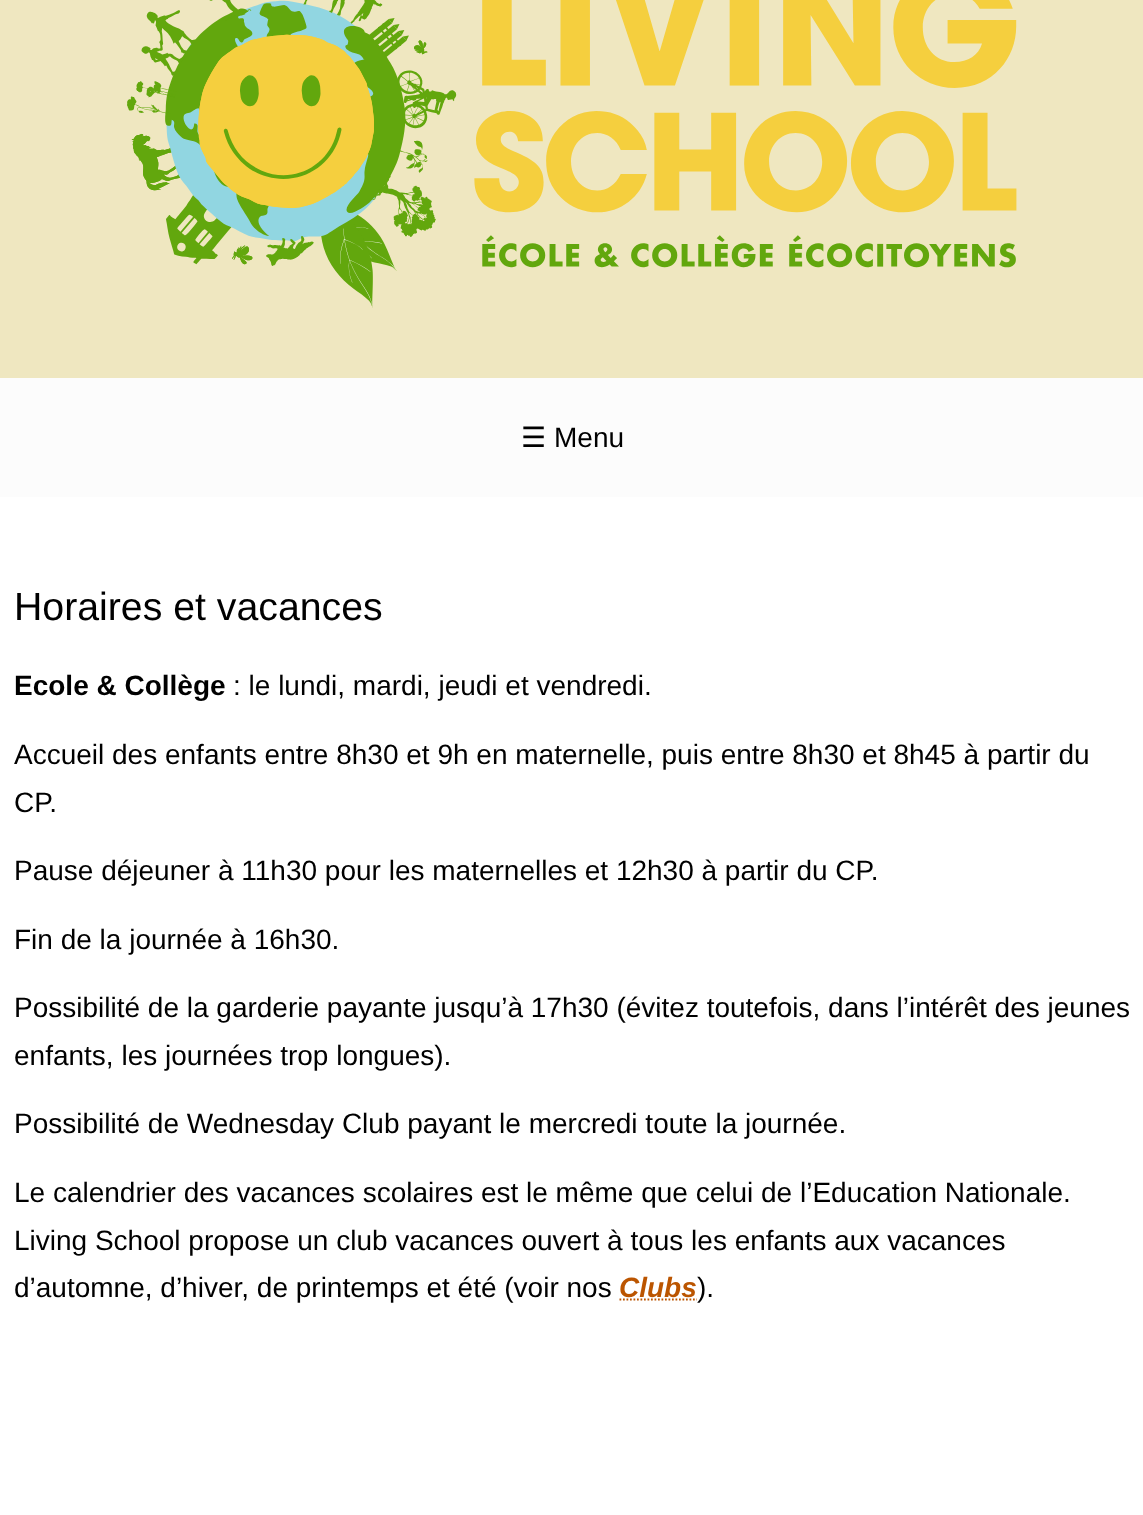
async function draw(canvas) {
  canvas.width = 1143;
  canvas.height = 1515;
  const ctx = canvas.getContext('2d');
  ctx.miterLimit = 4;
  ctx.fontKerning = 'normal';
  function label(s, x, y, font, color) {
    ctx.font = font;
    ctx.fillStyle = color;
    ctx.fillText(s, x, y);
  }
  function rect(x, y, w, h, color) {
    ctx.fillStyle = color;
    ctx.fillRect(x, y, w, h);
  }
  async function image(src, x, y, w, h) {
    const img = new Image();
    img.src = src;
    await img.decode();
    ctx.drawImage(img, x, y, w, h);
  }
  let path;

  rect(0, 0, 1143, 1515, '#fff');
  rect(0, 0, 1143, 378, '#efe7c0');
  await image('assets/img1.png', 127, 0, 890, 308);
  rect(0, 378, 1143, 119, '#fcfcfc');
  label('☰', 521, 447, '28px DejaVu Sans', '#000');
  label('Menu', 554, 447, '28px Liberation Sans', '#000');
  label('Horaires et vacances', 14, 620, '39.25px Liberation Sans', '#000');
  label('Ecole & Collège', 14, 695, 'bold 28px Liberation Sans', '#000');
  label(': le lundi, mardi, jeudi et vendredi.', 233, 695, '28px Liberation Sans', '#000');
  label('Accueil des enfants entre 8h30 et 9h en maternelle, puis entre 8h30 et 8h45 à partir du', 14, 764, '28px Liberation Sans', '#000');
  label('CP.', 14, 812, '28px Liberation Sans', '#000');
  label('Pause déjeuner à 11h30 pour les maternelles et 12h30 à partir du CP.', 14, 880, '28px Liberation Sans', '#000');
  label('Fin de la journée à 16h30.', 14, 949, '28px Liberation Sans', '#000');
  label('Possibilité de la garderie payante jusqu’à 17h30 (évitez toutefois, dans l’intérêt des jeunes', 14, 1017, '28px Liberation Sans', '#000');
  label('enfants, les journées trop longues).', 14, 1065, '28px Liberation Sans', '#000');
  label('Possibilité de Wednesday Club payant le mercredi toute la journée.', 14, 1133, '28px Liberation Sans', '#000');
  label('Le calendrier des vacances scolaires est le même que celui de l’Education Nationale.', 14, 1202, '28px Liberation Sans', '#000');
  label('Living School propose un club vacances ouvert à tous les enfants aux vacances', 14, 1250, '28px Liberation Sans', '#000');
  label('d’automne, d’hiver, de printemps et été (voir nos', 14, 1297, '28px Liberation Sans', '#000');
  label('Clubs', 619, 1297, 'italic bold 28px Liberation Sans', '#b50');
  path = new Path2D('M619.5 1299.5H697');
  ctx.strokeStyle = '#b50';
  ctx.lineWidth = 1.8;
  ctx.setLineDash([1.75, 1.75]);
  ctx.stroke(path);
  label(').', 697, 1297, '28px Liberation Sans', '#000');
}

draw(document.querySelector('canvas'));
